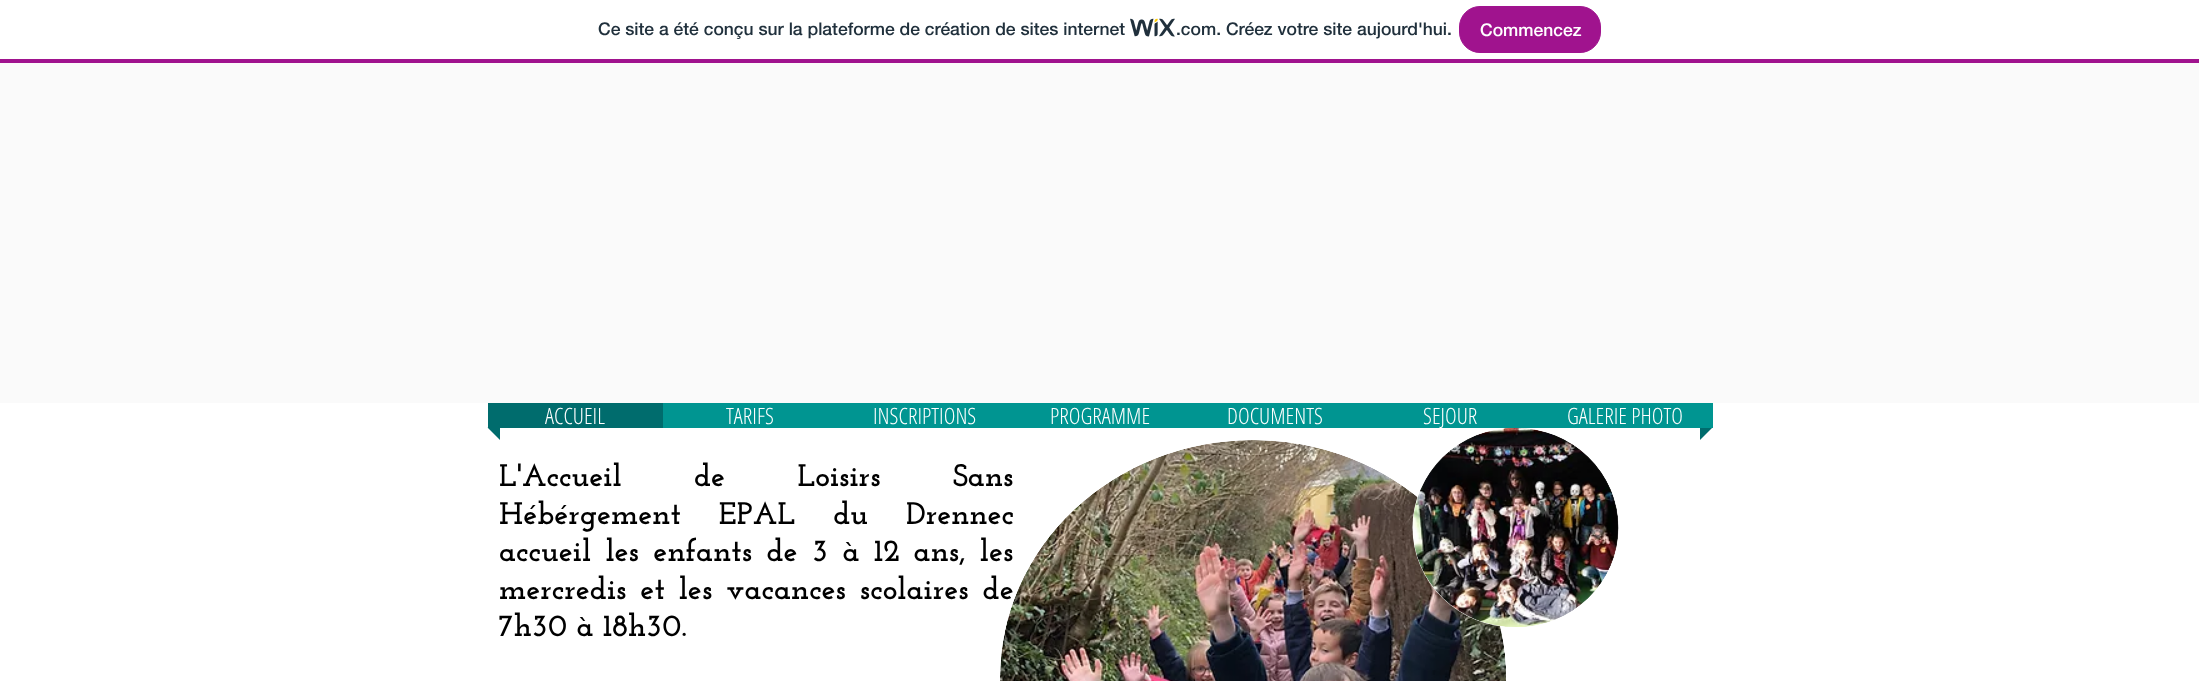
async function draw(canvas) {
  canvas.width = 2199;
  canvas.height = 681;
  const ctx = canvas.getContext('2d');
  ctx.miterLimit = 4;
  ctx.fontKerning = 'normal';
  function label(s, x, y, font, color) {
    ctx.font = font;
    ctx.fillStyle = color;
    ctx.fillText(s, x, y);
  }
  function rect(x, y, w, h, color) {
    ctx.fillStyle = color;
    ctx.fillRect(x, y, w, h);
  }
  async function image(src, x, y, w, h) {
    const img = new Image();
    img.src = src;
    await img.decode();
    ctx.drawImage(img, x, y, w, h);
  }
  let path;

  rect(0, 0, 2199, 681, '#fff');
  rect(0, 59, 2199, 4, '#a0138e');
  label('Ce site a été conçu sur la plateforme de création de sites internet', 598, 35, '500 17.5px "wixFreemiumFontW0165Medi"', '#20303c');
  await image('assets/img1.png', 1130, 18, 45, 19);
  label('.com. Créez votre site aujourd\'hui.', 1176, 35, '500 17.5px "wixFreemiumFontW0165Medi"', '#20303c');
  ctx.fillStyle = '#a0138e';
  ctx.beginPath();
  ctx.roundRect(1459.5, 6.5, 141, 46, 20.5);
  ctx.fill();
  ctx.strokeStyle = '#a0138e';
  ctx.stroke();
  label('Commencez', 1480, 36, '500 17.5px "wixFreemiumFontW0165Medi"', '#fff');
  rect(0, 63, 2199, 340, '#fafafa');
  ctx.fillStyle = '#006c6d';
  path = new Path2D('M1700 427.5H1712.5L1700 440Z');
  ctx.fill(path);
  ctx.wordSpacing = '63px';
  label('L\'Accueil de Loisirs Sans', 499, 486, 'bold 31.25px Josefin Slab', '#000');
  ctx.wordSpacing = '28.5px';
  label('Hébérgement EPAL du Drennec', 499, 524, 'bold 31.25px Josefin Slab', '#000');
  ctx.wordSpacing = '5px';
  label('accueil les enfants de 3 à 12 ans, les', 499, 561, 'bold 31.25px Josefin Slab', '#000');
  ctx.wordSpacing = '4.5px';
  label('mercredis et les vacances scolaires de', 499, 599, 'bold 31.25px Josefin Slab', '#000');
  await image('assets/img2.png', 1000, 440, 506, 241);
  ctx.fillStyle = '#fff';
  ctx.beginPath();
  ctx.ellipse(1515.5, 527.5, 103, 100, 0, 0, 2 * Math.PI);
  ctx.fill();
  rect(663, 403, 1050, 25, '#009591');
  ctx.fillStyle = '#006c6d';
  path = new Path2D('M487.5 427.5H500V440Z');
  ctx.fill(path);
  rect(488, 403, 175, 25, '#006c6d');
  ctx.wordSpacing = '0px';
  label('ACCUEIL', 545, 424, '300 22.5px Open Sans Condensed', '#fff');
  label('TARIFS', 726, 424, '300 22.5px Open Sans Condensed', '#fff');
  label('INSCRIPTIONS', 873, 424, '300 22.5px Open Sans Condensed', '#fff');
  label('PROGRAMME', 1050, 424, '300 22.5px Open Sans Condensed', '#fff');
  label('DOCUMENTS', 1227, 424, '300 22.5px Open Sans Condensed', '#fff');
  await image('assets/img3.png', 1413, 428, 206, 199);
  label('SEJOUR', 1423, 424, '300 22.5px Open Sans Condensed', '#fff');
  label('GALERIE PHOTO', 1567, 424, '300 22.5px Open Sans Condensed', '#fff');
  label('7h30 à 18h30.', 499, 636, 'bold 31.25px Josefin Slab', '#000');
}

draw(document.querySelector('canvas'));
